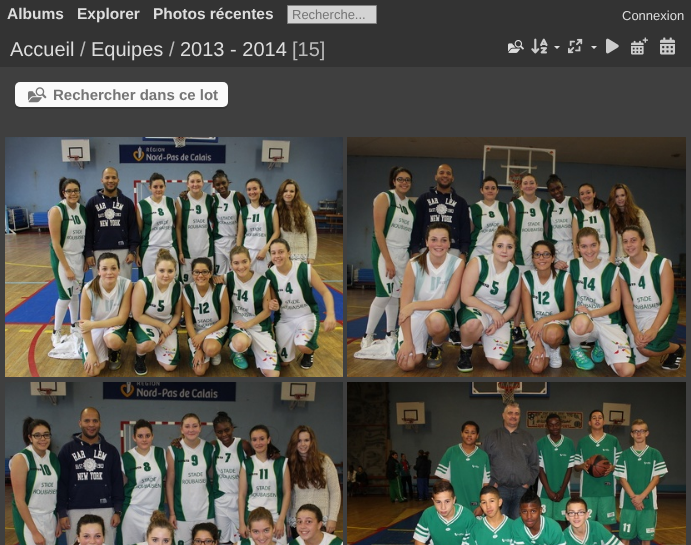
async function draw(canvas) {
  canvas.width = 691;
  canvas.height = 545;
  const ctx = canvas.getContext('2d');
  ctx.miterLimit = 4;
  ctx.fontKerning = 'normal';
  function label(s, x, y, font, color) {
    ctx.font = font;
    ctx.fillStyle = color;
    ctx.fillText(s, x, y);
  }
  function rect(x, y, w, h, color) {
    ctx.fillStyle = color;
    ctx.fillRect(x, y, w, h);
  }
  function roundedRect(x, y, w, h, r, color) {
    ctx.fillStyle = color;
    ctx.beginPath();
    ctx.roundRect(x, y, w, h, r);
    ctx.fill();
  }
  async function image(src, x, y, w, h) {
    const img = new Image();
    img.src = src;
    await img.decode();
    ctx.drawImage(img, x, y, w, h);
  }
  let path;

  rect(0, 0, 691, 545, '#3f3f3f');
  rect(0, 0, 691, 67, '#333');
  label('Albums', 7, 19, 'bold 15.5px Liberation Sans', '#ddd');
  label('Explorer', 77, 19, 'bold 15.5px Liberation Sans', '#ddd');
  label('Photos récentes', 153, 19, 'bold 15.5px Liberation Sans', '#ddd');
  ctx.fillStyle = '#d3d3d3';
  ctx.beginPath();
  ctx.rect(287.5, 5.5, 89, 18);
  ctx.fill();
  ctx.strokeStyle = '#808080';
  ctx.stroke();
  label('Recherche...', 292, 19, '13px Liberation Sans', '#757575');
  label('Connexion', 622, 20, '13px Liberation Sans', '#ddd');
  label('Accueil', 10, 56, '20px Liberation Sans', '#ddd');
  label('/', 80, 56, '20px Liberation Sans', '#bbb');
  label('Equipes', 91, 56, '20px Liberation Sans', '#ddd');
  label('/', 169, 56, '20px Liberation Sans', '#bbb');
  label('2013 - 2014', 180, 56, '20px Liberation Sans', '#ddd');
  label('[15]', 292, 56, '20px Liberation Sans', '#bbb');
  await image('assets/img1.png', 531, 38, 17, 16);
  ctx.fillStyle = '#ddd';
  path = new Path2D('M554 46H560L557 49ZM591 46H597L594 49Z');
  ctx.fill(path);
  await image('assets/img2.png', 631, 37, 17, 18);
  await image('assets/img3.png', 660, 37, 15, 18);
  await image('assets/img4.png', 508, 40, 16, 13);
  await image('assets/img5.png', 568, 38, 15, 16);
  await image('assets/img6.png', 606, 38, 13, 16);
  ctx.fillStyle = '#363636';
  path = new Path2D('M15 102V104C15 107 17 109 20 109H223C226 109 228 107 228 104V102C228 105 226 107 223 107H20C17 107 15 105 15 102Z');
  ctx.fill(path);
  roundedRect(15, 82, 213, 25, 5, '#fafafa');
  await image('assets/img7.png', 28, 87, 19, 16);
  label('Rechercher dans ce lot', 53, 100, 'bold 15px Liberation Sans', '#757575');
  await image('assets/img8.png', 5, 137, 338, 240);
  await image('assets/img9.png', 347, 137, 339, 240);
  await image('assets/img10.png', 5, 382, 338, 163);
  await image('assets/img11.png', 347, 382, 339, 163);
}

draw(document.querySelector('canvas'));
